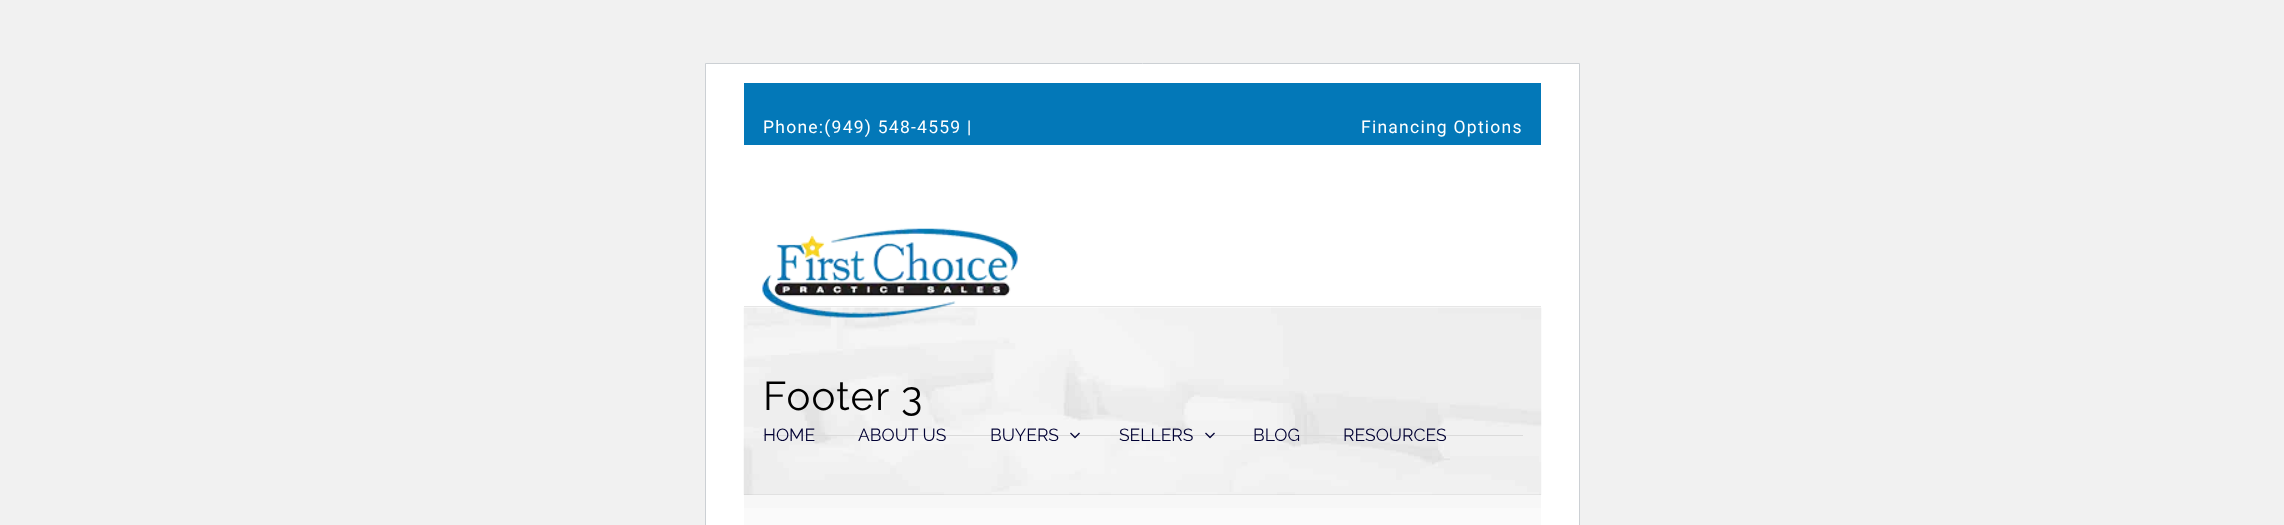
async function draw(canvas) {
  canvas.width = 2284;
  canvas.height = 525;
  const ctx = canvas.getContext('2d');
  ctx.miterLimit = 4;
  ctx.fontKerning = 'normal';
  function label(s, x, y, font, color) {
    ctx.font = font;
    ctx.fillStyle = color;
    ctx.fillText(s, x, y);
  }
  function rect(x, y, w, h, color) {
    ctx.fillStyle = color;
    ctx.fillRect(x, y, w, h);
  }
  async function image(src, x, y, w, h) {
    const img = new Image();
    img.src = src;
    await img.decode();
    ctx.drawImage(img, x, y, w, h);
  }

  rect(0, 0, 2284, 525, '#f1f1f1');
  ctx.fillStyle = '#fff';
  ctx.beginPath();
  ctx.rect(705.5, 63.5, 874, 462);
  ctx.fill();
  ctx.strokeStyle = '#ccd0d4';
  ctx.stroke();
  rect(744, 83, 797, 62, '#0378b8');
  ctx.letterSpacing = '1.25px';
  label('Phone:(949) 548-4559 |', 763, 133, '17.5px Roboto', '#fff');
  label('Financing Options', 1361, 133, '17.5px Roboto', '#fff');
  rect(744, 495, 797, 13, '#f7f7f7');
  await image('assets/img1.png', 743, 307, 799, 188);
  rect(763, 435, 760, 1, '#dadada');
  label('Footer 3', 763, 410, '40px Raleway', '#000');
  rect(744, 494, 797, 1, '#0000000d');
  rect(744, 508, 797, 17, '#fafafa');
  rect(744, 306, 797, 1, '#e6e6e6');
  await image('assets/img2.png', 762, 228, 256, 90);
  ctx.letterSpacing = '0px';
  label('HOME', 763, 441, '17.5px Raleway', '#003');
  label('ABOUT US', 858, 441, '17.5px Raleway', '#003');
  label('BUYERS', 990, 441, '17.5px Raleway', '#003');
  await image('assets/img3.png', 1070, 432, 10, 7);
  label('SELLERS', 1119, 441, '17.5px Raleway', '#003');
  await image('assets/img4.png', 1205, 432, 10, 7);
  label('BLOG', 1253, 441, '17.5px Raleway', '#003');
  label('RESOURCES', 1343, 441, '17.5px Raleway', '#003');
}

draw(document.querySelector('canvas'));
